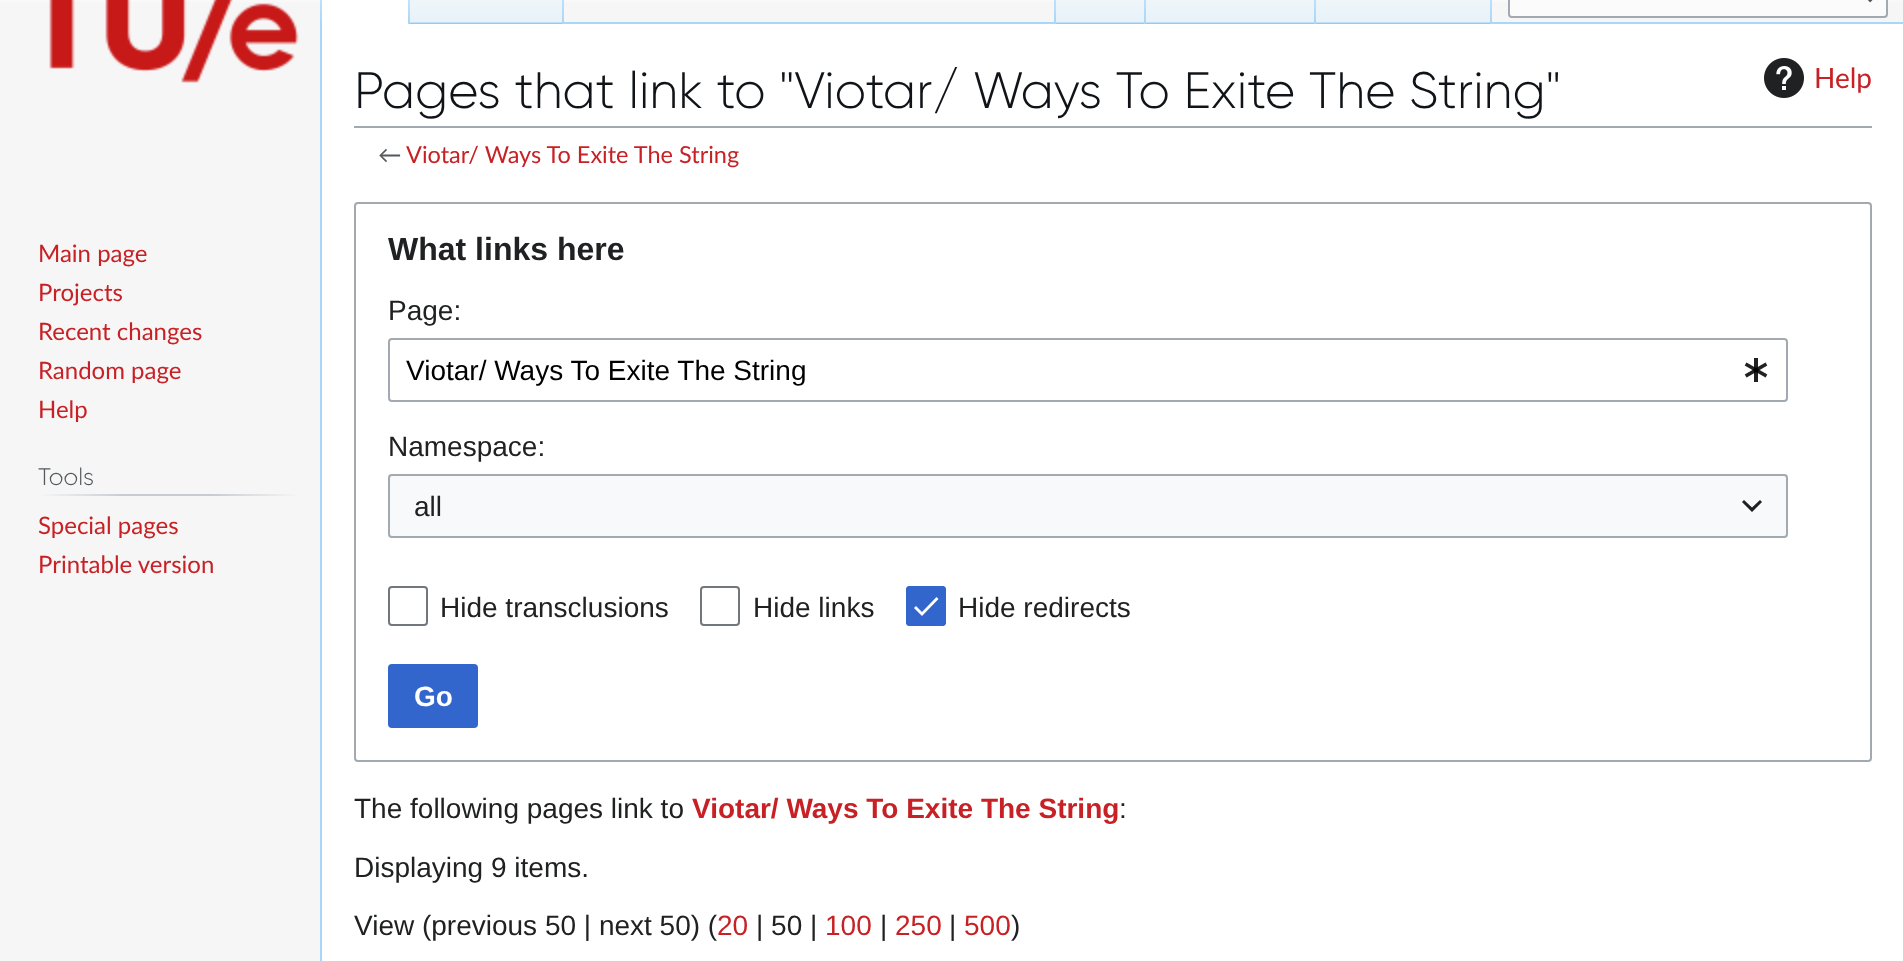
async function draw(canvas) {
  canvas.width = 1903;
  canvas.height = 961;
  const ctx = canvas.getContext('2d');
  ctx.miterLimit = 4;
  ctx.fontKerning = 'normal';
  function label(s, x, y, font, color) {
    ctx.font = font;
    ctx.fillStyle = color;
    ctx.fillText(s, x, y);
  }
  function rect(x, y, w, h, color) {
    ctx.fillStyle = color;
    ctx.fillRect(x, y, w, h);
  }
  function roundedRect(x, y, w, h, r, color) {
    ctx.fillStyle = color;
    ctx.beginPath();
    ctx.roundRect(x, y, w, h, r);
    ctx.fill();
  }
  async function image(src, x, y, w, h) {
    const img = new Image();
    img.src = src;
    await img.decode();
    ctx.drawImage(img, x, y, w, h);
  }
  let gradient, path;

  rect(0, 0, 1903, 961, '#f6f6f6');
  gradient = ctx.createLinearGradient(952, -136, 952, 24);
  gradient.addColorStop(0.5, '#fff');
  gradient.addColorStop(1, '#f6f6f6');
  ctx.fillStyle = gradient;
  ctx.fillRect(0, 0, 1903, 2);
  rect(320, 22, 2, 939, '#a7d7f9');
  gradient = ctx.createLinearGradient(321, -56, 321, 24);
  gradient.addColorStop(0, '#a7d7f900');
  gradient.addColorStop(1, '#a7d7f9');
  ctx.fillStyle = gradient;
  ctx.fillRect(320, 0, 2, 24);
  rect(322, 0, 86, 24, '#fff');
  gradient = ctx.createLinearGradient(409, -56, 409, 24);
  gradient.addColorStop(0, '#fff');
  gradient.addColorStop(1, '#a7d7f9');
  ctx.fillStyle = gradient;
  ctx.fillRect(408, 0, 2, 24);
  gradient = ctx.createLinearGradient(487, 24, 487, -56);
  gradient.addColorStop(0, '#77c1f6');
  gradient.addColorStop(0.03, '#e8f2f8');
  gradient.addColorStop(1, '#fff');
  ctx.fillStyle = gradient;
  ctx.fillRect(410, 0, 154, 24);
  gradient = ctx.createLinearGradient(563, -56, 563, 24);
  gradient.addColorStop(0, '#a7d7f900');
  gradient.addColorStop(1, '#a7d7f9');
  ctx.fillStyle = gradient;
  ctx.fillRect(562, 0, 2, 24);
  rect(564, 22, 1339, 2, '#a7d7f9');
  gradient = ctx.createLinearGradient(1055, -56, 1055, 24);
  gradient.addColorStop(0, '#a7d7f900');
  gradient.addColorStop(1, '#a7d7f9');
  ctx.fillStyle = gradient;
  ctx.fillRect(1054, 0, 2, 24);
  gradient = ctx.createLinearGradient(1101, 24, 1101, -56);
  gradient.addColorStop(0, '#77c1f6');
  gradient.addColorStop(0.03, '#e8f2f8');
  gradient.addColorStop(1, '#fff');
  ctx.fillStyle = gradient;
  ctx.fillRect(1056, 0, 90, 24);
  gradient = ctx.createLinearGradient(1145, -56, 1145, 24);
  gradient.addColorStop(0, '#a7d7f900');
  gradient.addColorStop(1, '#a7d7f9');
  ctx.fillStyle = gradient;
  ctx.fillRect(1144, 0, 2, 24);
  gradient = ctx.createLinearGradient(1231, 24, 1231, -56);
  gradient.addColorStop(0, '#77c1f6');
  gradient.addColorStop(0.03, '#e8f2f8');
  gradient.addColorStop(1, '#fff');
  ctx.fillStyle = gradient;
  ctx.fillRect(1146, 0, 170, 24);
  gradient = ctx.createLinearGradient(1315, -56, 1315, 24);
  gradient.addColorStop(0, '#a7d7f900');
  gradient.addColorStop(1, '#a7d7f9');
  ctx.fillStyle = gradient;
  ctx.fillRect(1314, 0, 2, 24);
  gradient = ctx.createLinearGradient(1404, 24, 1404, -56);
  gradient.addColorStop(0, '#77c1f6');
  gradient.addColorStop(0.03, '#e8f2f8');
  gradient.addColorStop(1, '#fff');
  ctx.fillStyle = gradient;
  ctx.fillRect(1316, 0, 176, 24);
  gradient = ctx.createLinearGradient(1491, -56, 1491, 24);
  gradient.addColorStop(0, '#a7d7f900');
  gradient.addColorStop(1, '#a7d7f9');
  ctx.fillStyle = gradient;
  ctx.fillRect(1490, 0, 2, 24);
  ctx.fillStyle = '#fbfbfb';
  ctx.beginPath();
  ctx.roundRect(1509, -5, 378, 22, 3);
  ctx.fill();
  ctx.strokeStyle = '#a2a9b1';
  ctx.lineWidth = 2;
  ctx.stroke();
  await image('assets/img1.png', 1868, 0, 5, 3);
  await image('assets/img2.png', 49, 0, 250, 83);
  label('Main page', 38, 262, '24px Lato', '#c72125');
  label('Projects', 38, 301, '24px Lato', '#c72125');
  label('Recent changes', 38, 340, '24px Lato', '#c72125');
  label('Random page', 38, 379, '24px Lato', '#c72125');
  label('Help', 38, 418, '24px Lato', '#c72125');
  gradient = ctx.createLinearGradient(38, 495, 300, 495);
  gradient.addColorStop(0, '#f6f6f6');
  gradient.addColorStop(0.33, '#c8ccd1');
  gradient.addColorStop(0.66, '#c8ccd1');
  gradient.addColorStop(1, '#f6f6f6');
  ctx.fillStyle = gradient;
  ctx.fillRect(38, 494, 262, 2);
  label('Tools', 38, 485, '300 24px Gilroy', '#54595d');
  label('Special pages', 38, 534, '24px Lato', '#c72125');
  label('Printable version', 38, 573, '24px Lato', '#c72125');
  rect(322, 24, 1581, 937, '#fff');
  rect(354, 126, 1518, 2, '#a2a9b1');
  label('Pages that link to "Viotar/ Ways To Exite The String"', 354, 108, '300 51.2px Gilroy', '#101418');
  await image('assets/img3.png', 1764, 58, 40, 40);
  label('Help', 1814, 88, '28px Lato', '#c72125');
  label('←', 378, 163, '23.5px Lato', '#54595d');
  label('Viotar/ Ways To Exite The String', 406, 163, '23.5px Lato', '#c72125');
  ctx.beginPath();
  ctx.roundRect(355, 203, 1516, 558, 3);
  ctx.stroke();
  label('What links here', 388, 260, 'bold 32px Liberation Sans', '#202122');
  label('Page:', 388, 320, '28px Liberation Sans', '#202122');
  ctx.beginPath();
  ctx.roundRect(389, 339, 1398, 62, 3);
  ctx.stroke();
  label('Viotar/ Ways To Exite The String', 406, 380, '28px Liberation Sans', '#000');
  await image('assets/img4.png', 1744, 358, 24, 24);
  label('Namespace:', 388, 456, '28px Liberation Sans', '#202122');
  rect(388, 474, 1400, 64, '#f8f9fa');
  ctx.beginPath();
  ctx.roundRect(389, 475, 1398, 62, 3);
  ctx.stroke();
  label('all', 414, 516, '28px Liberation Sans', '#202122');
  ctx.fillStyle = '#202021';
  path = new Path2D('M1760 500L1752 507.5L1744 500L1742 502L1752 512L1762 502Z');
  ctx.fill(path);
  ctx.beginPath();
  ctx.roundRect(389, 587, 38, 38, 3);
  ctx.strokeStyle = '#72777d';
  ctx.stroke();
  label('Hide transclusions', 440, 617, '28px Liberation Sans', '#202122');
  ctx.beginPath();
  ctx.roundRect(701, 587, 38, 38, 3);
  ctx.stroke();
  label('Hide links', 753, 617, '28px Liberation Sans', '#202122');
  roundedRect(906, 586, 40, 40, 4, '#36c');
  ctx.fillStyle = '#fff';
  path = new Path2D('M922 612L916 606L914 608L922 616L938.5 599L936.5 597Z');
  ctx.fill(path);
  ctx.beginPath();
  ctx.roundRect(907, 587, 38, 38, 3);
  ctx.strokeStyle = '#36c';
  ctx.stroke();
  label('Hide redirects', 958, 617, '28px Liberation Sans', '#202122');
  ctx.fillStyle = '#36c';
  ctx.beginPath();
  ctx.roundRect(389, 665, 88, 62, 3);
  ctx.fill();
  ctx.stroke();
  label('Go', 414, 706, 'bold 28px Liberation Sans', '#fff');
  label('The following pages link to', 354, 818, '28px Liberation Sans', '#202122');
  label('Viotar/ Ways To Exite The String', 692, 818, 'bold 28px Liberation Sans', '#c72125');
  label(':', 1119, 818, '28px Liberation Sans', '#202122');
  label('Displaying 9 items.', 354, 877, '28px Liberation Sans', '#202122');
  label('View (previous 50 | next 50) (', 354, 935, '28px Liberation Sans', '#202122');
  label('20', 717, 935, '28px Liberation Sans', '#c72125');
  label('| 50 |', 756, 935, '28px Liberation Sans', '#202122');
  label('100', 825, 935, '28px Liberation Sans', '#c72125');
  label('|', 880, 935, '28px Liberation Sans', '#202122');
  label('250', 895, 935, '28px Liberation Sans', '#c72125');
  label('|', 949, 935, '28px Liberation Sans', '#202122');
  label('500', 964, 935, '28px Liberation Sans', '#c72125');
  label(')', 1011, 935, '28px Liberation Sans', '#202122');
}

draw(document.querySelector('canvas'));
